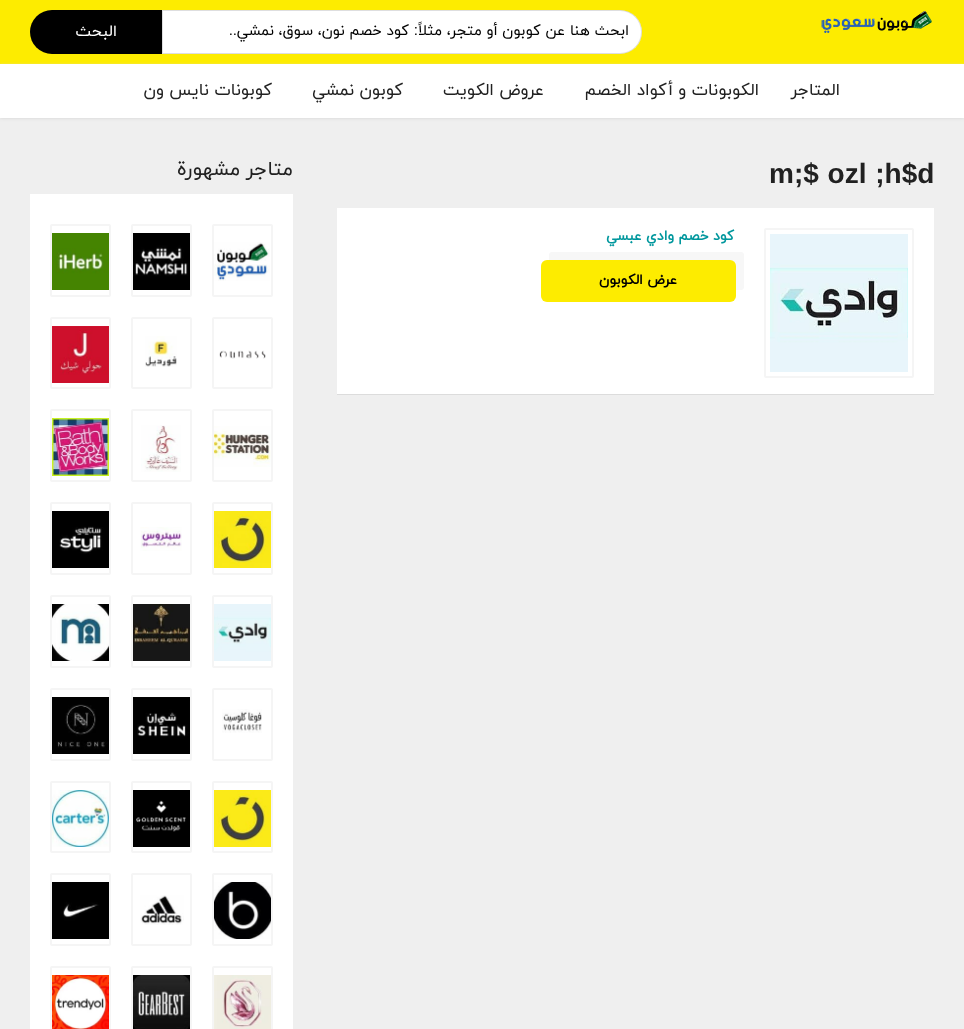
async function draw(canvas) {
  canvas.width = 964;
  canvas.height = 1029;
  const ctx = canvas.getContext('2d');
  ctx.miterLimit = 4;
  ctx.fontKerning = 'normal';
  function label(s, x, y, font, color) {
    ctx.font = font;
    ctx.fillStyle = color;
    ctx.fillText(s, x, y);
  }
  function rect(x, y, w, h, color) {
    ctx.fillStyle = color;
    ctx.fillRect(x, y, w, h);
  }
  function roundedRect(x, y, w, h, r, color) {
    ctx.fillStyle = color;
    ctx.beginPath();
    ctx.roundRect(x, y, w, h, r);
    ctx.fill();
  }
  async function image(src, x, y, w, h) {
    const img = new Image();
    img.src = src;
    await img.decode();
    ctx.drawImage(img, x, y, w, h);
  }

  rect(0, 0, 964, 1029, '#efefef');
  rect(0, 0, 964, 64, '#fdec00');
  await image('assets/img1.png', 821, 11, 111, 22);
  ctx.fillStyle = '#fff';
  ctx.beginPath();
  ctx.roundRect(162, 10, 480, 44, [0, 22, 22, 0]);
  ctx.fill();
  ctx.beginPath();
  ctx.roundRect(162.5, 10.5, 479, 43, [0, 21.5, 21.5, 0]);
  ctx.strokeStyle = '#22242626';
  ctx.stroke();
  ctx.direction = 'rtl';
  label('ابحث هنا عن كوبون أو متجر، مثلاً', 629, 35, '15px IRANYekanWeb', '#000');
  label(':', 418, 35, '15px Liberation Sans', '#000');
  label('كود خصم نون، سوق، نمشي', 409, 35, '15px IRANYekanWeb', '#000');
  label('..', 237, 35, '15px Liberation Sans', '#000');
  ctx.beginPath();
  ctx.roundRect(30, 10, 132, 44, [22, 0, 0, 22]);
  ctx.fill();
  label('البحث', 117, 36, '16px IRANYekanWeb', '#fff');
  ctx.fillStyle = '#ddd';
  ctx.filter = 'blur(1.5px)';
  ctx.beginPath();
  ctx.rect(0, 65, 964, 54);
  ctx.fill();
  ctx.filter = 'none';
  rect(0, 64, 964, 54, '#fff');
  label('المتاجر', 840, 95, '17px IRANYekanWeb', '#212121');
  label('الكوبونات و أكواد الخصم', 759, 95, '17px IRANYekanWeb', '#212121');
  label('عروض الكويت', 544, 95, '17px IRANYekanWeb', '#212121');
  label('كوبون نمشي', 403, 95, '17px IRANYekanWeb', '#212121');
  label('كوبونات نايس ون', 272, 95, '17px IRANYekanWeb', '#212121');
  ctx.wordSpacing = '1px';
  ctx.direction = 'ltr';
  label('m;$ ozl ;h$d', 769, 183, 'bold 28px Liberation Sans', '#212121');
  ctx.fillStyle = '#00000014';
  ctx.filter = 'blur(0.5px)';
  ctx.beginPath();
  ctx.rect(337, 209, 597, 186);
  ctx.fill();
  ctx.filter = 'none';
  rect(337, 208, 597, 186, '#fff');
  ctx.beginPath();
  ctx.roundRect(765, 229, 148, 148, 1);
  ctx.strokeStyle = '#f5f5f5';
  ctx.lineWidth = 2;
  ctx.stroke();
  await image('assets/img2.png', 770, 234, 138, 138);
  ctx.wordSpacing = '0px';
  ctx.direction = 'rtl';
  label('كود خصم وادي عبسي', 734, 240, 'bold 14px IRANYekanWeb', '#00979d');
  roundedRect(549, 252, 195, 38, 3, '#f7f7f7');
  roundedRect(541, 260, 195, 42, 6, '#fdec00');
  label('عرض الكوبون', 677, 284, 'bold 14px IRANYekanWeb', '#000');
  label('متاجر مشهورة', 293, 175, '20px IRANYekanWeb', '#212121');
  rect(30, 194, 263, 835, '#fff');
  ctx.beginPath();
  ctx.roundRect(213, 225, 59, 71, 1);
  ctx.stroke();
  await image('assets/img3.png', 214, 242, 56, 39);
  ctx.beginPath();
  ctx.roundRect(132, 225, 59, 71, 1);
  ctx.stroke();
  await image('assets/img4.png', 133, 233, 57, 57);
  ctx.beginPath();
  ctx.roundRect(51, 225, 59, 71, 1);
  ctx.stroke();
  await image('assets/img5.png', 52, 233, 57, 57);
  ctx.beginPath();
  ctx.roundRect(213, 318, 59, 70, 1);
  ctx.stroke();
  await image('assets/img6.png', 219, 350, 47, 9);
  ctx.beginPath();
  ctx.roundRect(132, 318, 59, 70, 1);
  ctx.stroke();
  await image('assets/img7.png', 145, 336, 32, 31);
  ctx.beginPath();
  ctx.roundRect(51, 318, 59, 70, 1);
  ctx.stroke();
  await image('assets/img8.png', 52, 326, 57, 57);
  ctx.beginPath();
  ctx.roundRect(213, 410, 59, 71, 1);
  ctx.stroke();
  await image('assets/img9.png', 214, 426, 57, 41);
  ctx.beginPath();
  ctx.roundRect(132, 410, 59, 71, 1);
  ctx.stroke();
  await image('assets/img10.png', 141, 425, 40, 47);
  ctx.beginPath();
  ctx.roundRect(51, 410, 59, 71, 1);
  ctx.stroke();
  await image('assets/img11.png', 52, 418, 57, 58);
  ctx.beginPath();
  ctx.roundRect(213, 503, 59, 71, 1);
  ctx.stroke();
  await image('assets/img12.png', 214, 511, 57, 57);
  ctx.beginPath();
  ctx.roundRect(132, 503, 59, 71, 1);
  ctx.stroke();
  await image('assets/img13.png', 140, 527, 42, 24);
  ctx.beginPath();
  ctx.roundRect(51, 503, 59, 71, 1);
  ctx.stroke();
  await image('assets/img14.png', 52, 511, 57, 57);
  ctx.beginPath();
  ctx.roundRect(213, 596, 59, 71, 1);
  ctx.stroke();
  await image('assets/img15.png', 214, 604, 57, 57);
  ctx.beginPath();
  ctx.roundRect(132, 596, 59, 71, 1);
  ctx.stroke();
  await image('assets/img16.png', 133, 604, 57, 57);
  ctx.beginPath();
  ctx.roundRect(51, 596, 59, 71, 1);
  ctx.stroke();
  await image('assets/img17.png', 52, 604, 57, 57);
  ctx.beginPath();
  ctx.roundRect(213, 689, 59, 71, 1);
  ctx.stroke();
  await image('assets/img18.png', 222, 709, 40, 24);
  ctx.beginPath();
  ctx.roundRect(132, 689, 59, 71, 1);
  ctx.stroke();
  await image('assets/img19.png', 133, 697, 57, 57);
  ctx.beginPath();
  ctx.roundRect(51, 689, 59, 71, 1);
  ctx.stroke();
  await image('assets/img20.png', 52, 697, 57, 57);
  ctx.beginPath();
  ctx.roundRect(213, 782, 59, 70, 1);
  ctx.stroke();
  await image('assets/img21.png', 214, 790, 57, 57);
  ctx.beginPath();
  ctx.roundRect(132, 782, 59, 70, 1);
  ctx.stroke();
  await image('assets/img22.png', 133, 790, 57, 57);
  ctx.beginPath();
  ctx.roundRect(51, 782, 59, 70, 1);
  ctx.stroke();
  await image('assets/img23.png', 52, 790, 57, 57);
  ctx.beginPath();
  ctx.roundRect(213, 874, 59, 71, 1);
  ctx.stroke();
  await image('assets/img24.png', 214, 882, 57, 57);
  ctx.beginPath();
  ctx.roundRect(132, 874, 59, 71, 1);
  ctx.stroke();
  await image('assets/img25.png', 140, 895, 44, 30);
  ctx.beginPath();
  ctx.roundRect(51, 874, 59, 71, 1);
  ctx.stroke();
  await image('assets/img26.png', 52, 882, 57, 57);
  ctx.beginPath();
  ctx.roundRect(213, 967, 59, 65, 1);
  ctx.stroke();
  await image('assets/img27.png', 214, 975, 57, 54);
  ctx.beginPath();
  ctx.roundRect(132, 967, 59, 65, 1);
  ctx.stroke();
  await image('assets/img28.png', 133, 975, 57, 54);
  ctx.beginPath();
  ctx.roundRect(51, 967, 59, 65, 1);
  ctx.stroke();
  await image('assets/img29.png', 52, 975, 57, 54);
}

draw(document.querySelector('canvas'));
